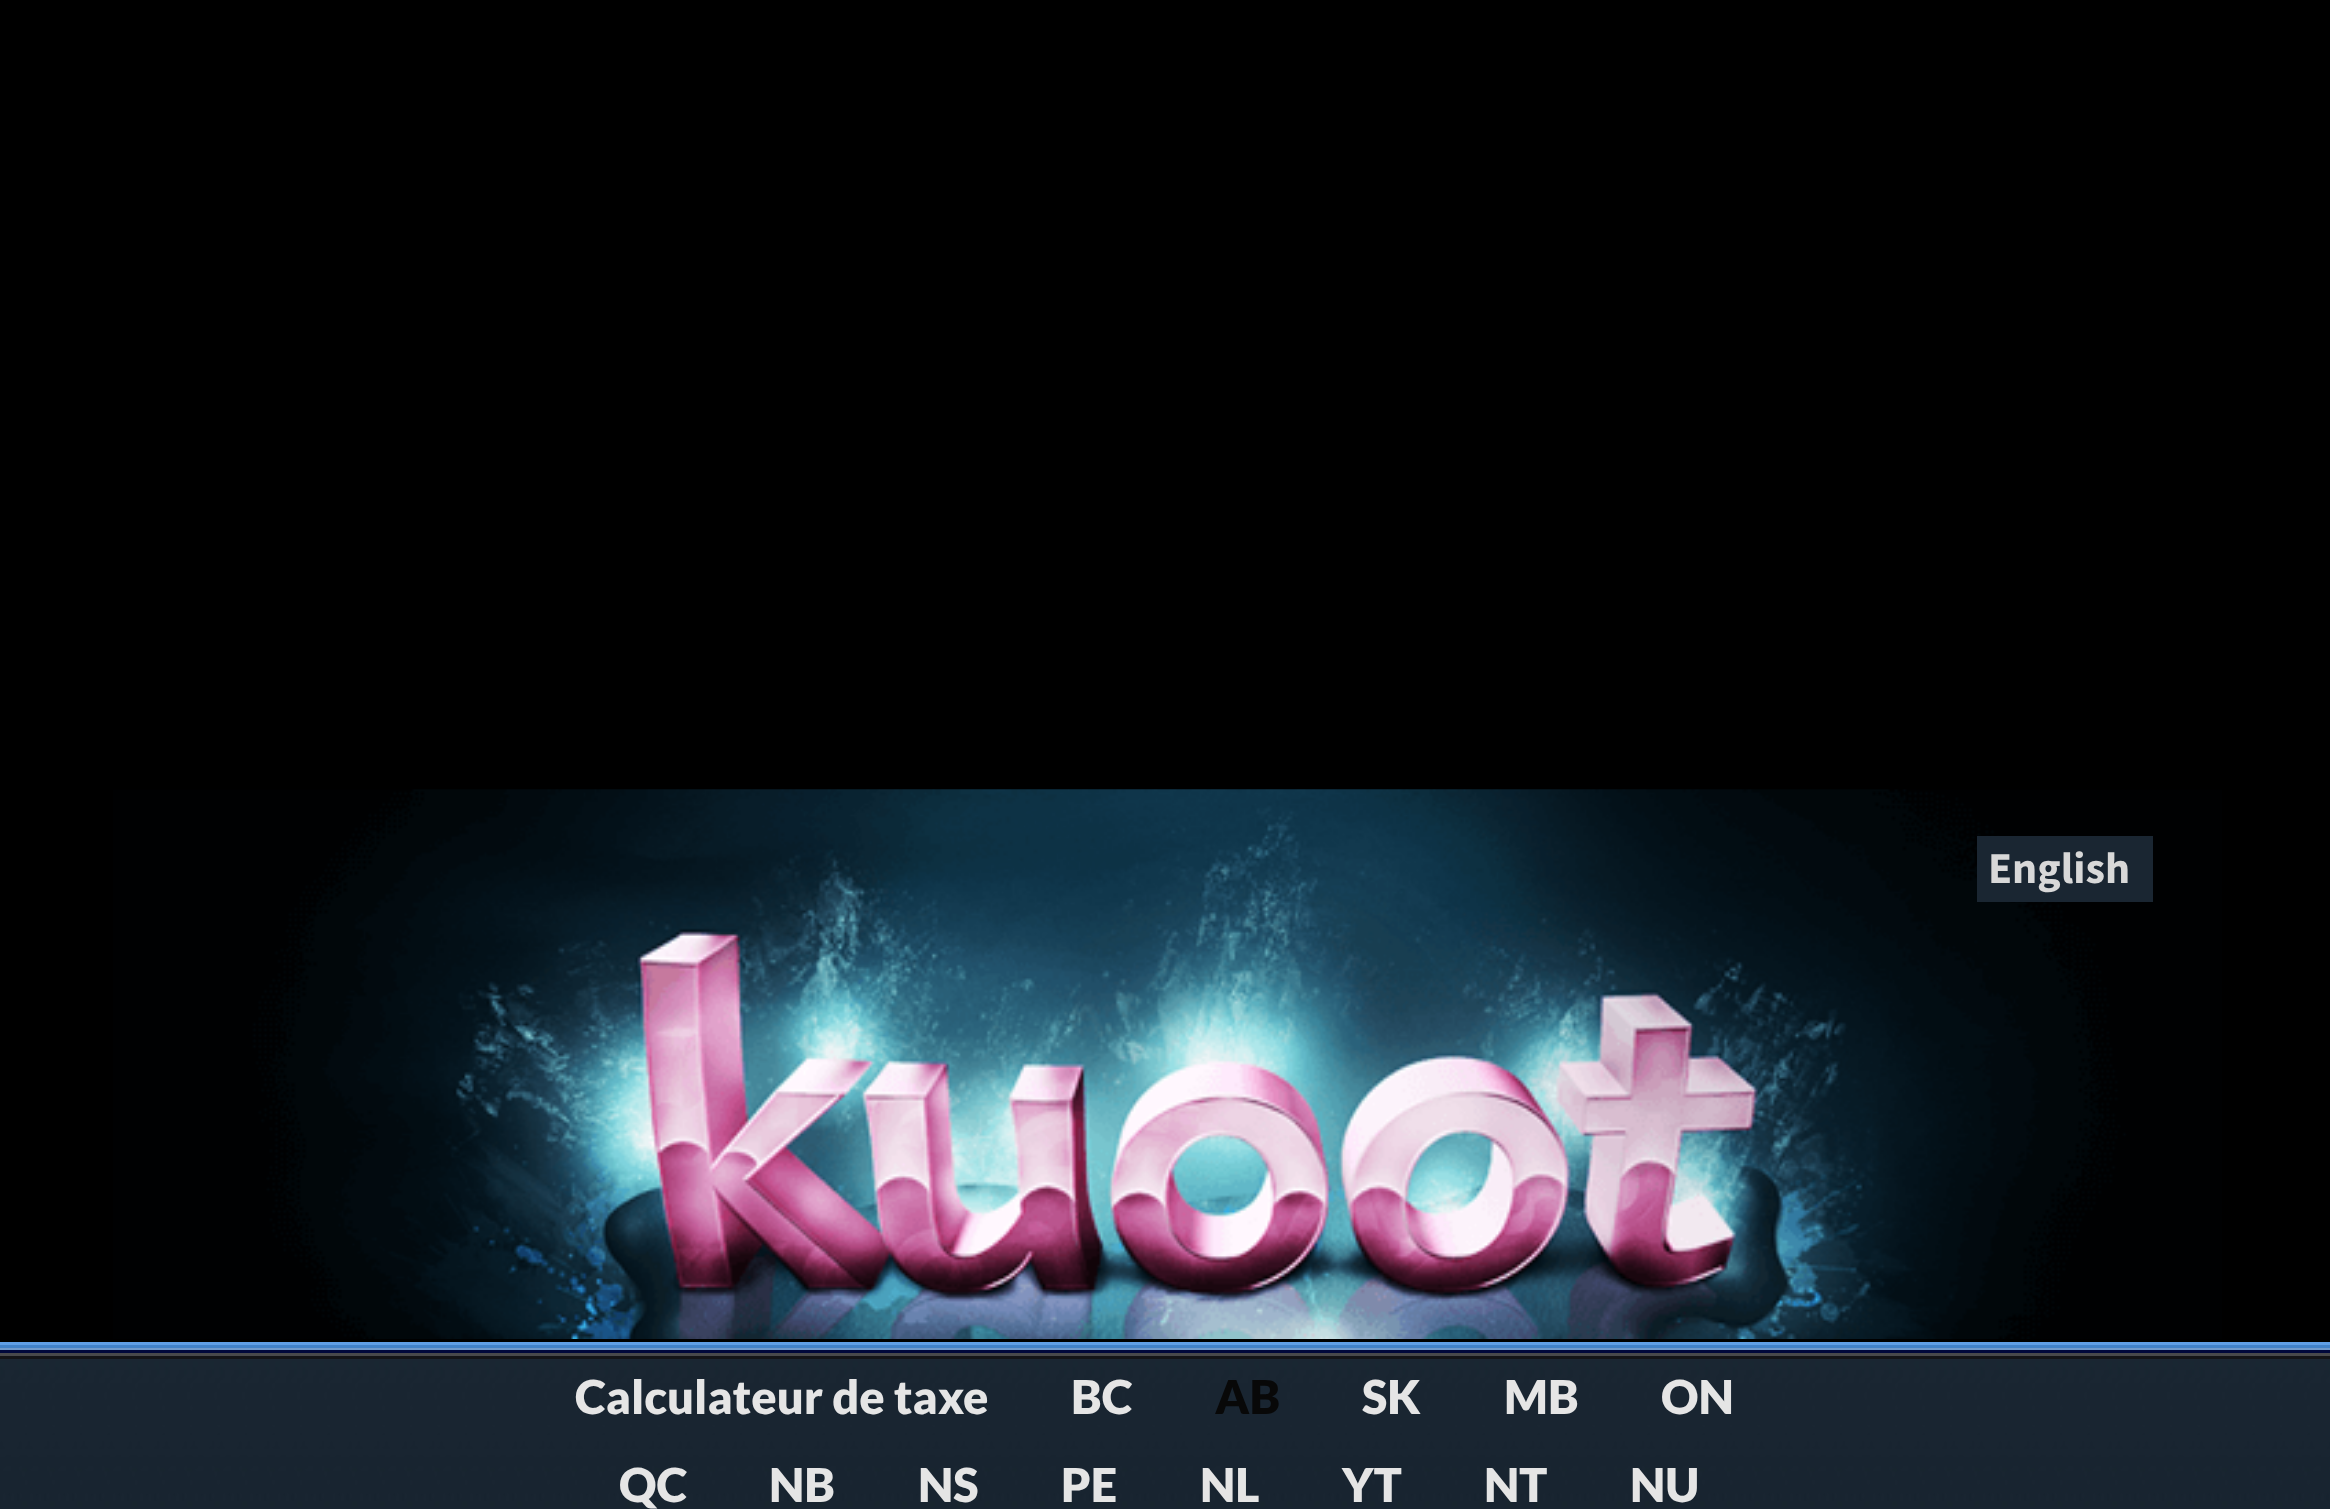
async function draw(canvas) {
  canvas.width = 2330;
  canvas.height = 1509;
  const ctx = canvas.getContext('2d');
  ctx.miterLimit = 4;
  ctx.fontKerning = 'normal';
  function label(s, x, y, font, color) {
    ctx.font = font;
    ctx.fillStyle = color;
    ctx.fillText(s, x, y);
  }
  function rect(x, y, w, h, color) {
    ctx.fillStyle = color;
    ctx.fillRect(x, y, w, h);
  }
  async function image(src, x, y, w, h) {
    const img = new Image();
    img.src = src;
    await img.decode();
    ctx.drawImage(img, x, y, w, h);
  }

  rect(0, 0, 2330, 1509, '#000');
  await image('assets/img1.png', 112, 789, 2110, 550);
  rect(1977, 836, 176, 66, '#1a2632');
  label('English', 1988, 883, 'bold 44px Source Sans Pro', '#d8d8d8');
  await image('assets/img2.png', 0, 1359, 2330, 150);
  rect(0, 1342, 2330, 3, '#609fe6');
  rect(0, 1345, 2330, 3, '#4282c9');
  rect(0, 1348, 2330, 2, '#709acc');
  rect(0, 1350, 2330, 3, '#00083a');
  rect(0, 1353, 2330, 3, '#48494b');
  rect(0, 1356, 2330, 3, '#141517');
  label('Calculateur de taxe', 575, 1414, '900 46.75px Lato', '#e5e5e5');
  label('BC', 1071, 1414, '900 46.75px Lato', '#e5e5e5');
  label('AB', 1215, 1414, '900 46.75px Lato', '#080808');
  label('SK', 1362, 1414, '900 46.75px Lato', '#e5e5e5');
  label('MB', 1504, 1414, '900 46.75px Lato', '#e5e5e5');
  label('ON', 1661, 1414, '900 46.75px Lato', '#e5e5e5');
  label('QC', 619, 1502, '900 46.75px Lato', '#e5e5e5');
  label('NB', 769, 1502, '900 46.75px Lato', '#e5e5e5');
  label('NS', 918, 1502, '900 46.75px Lato', '#e5e5e5');
  label('PE', 1061, 1502, '900 46.75px Lato', '#e5e5e5');
  label('NL', 1200, 1502, '900 46.75px Lato', '#e5e5e5');
  label('YT', 1342, 1502, '900 46.75px Lato', '#e5e5e5');
  label('NT', 1484, 1502, '900 46.75px Lato', '#e5e5e5');
  label('NU', 1630, 1502, '900 46.75px Lato', '#e5e5e5');
}

draw(document.querySelector('canvas'));
